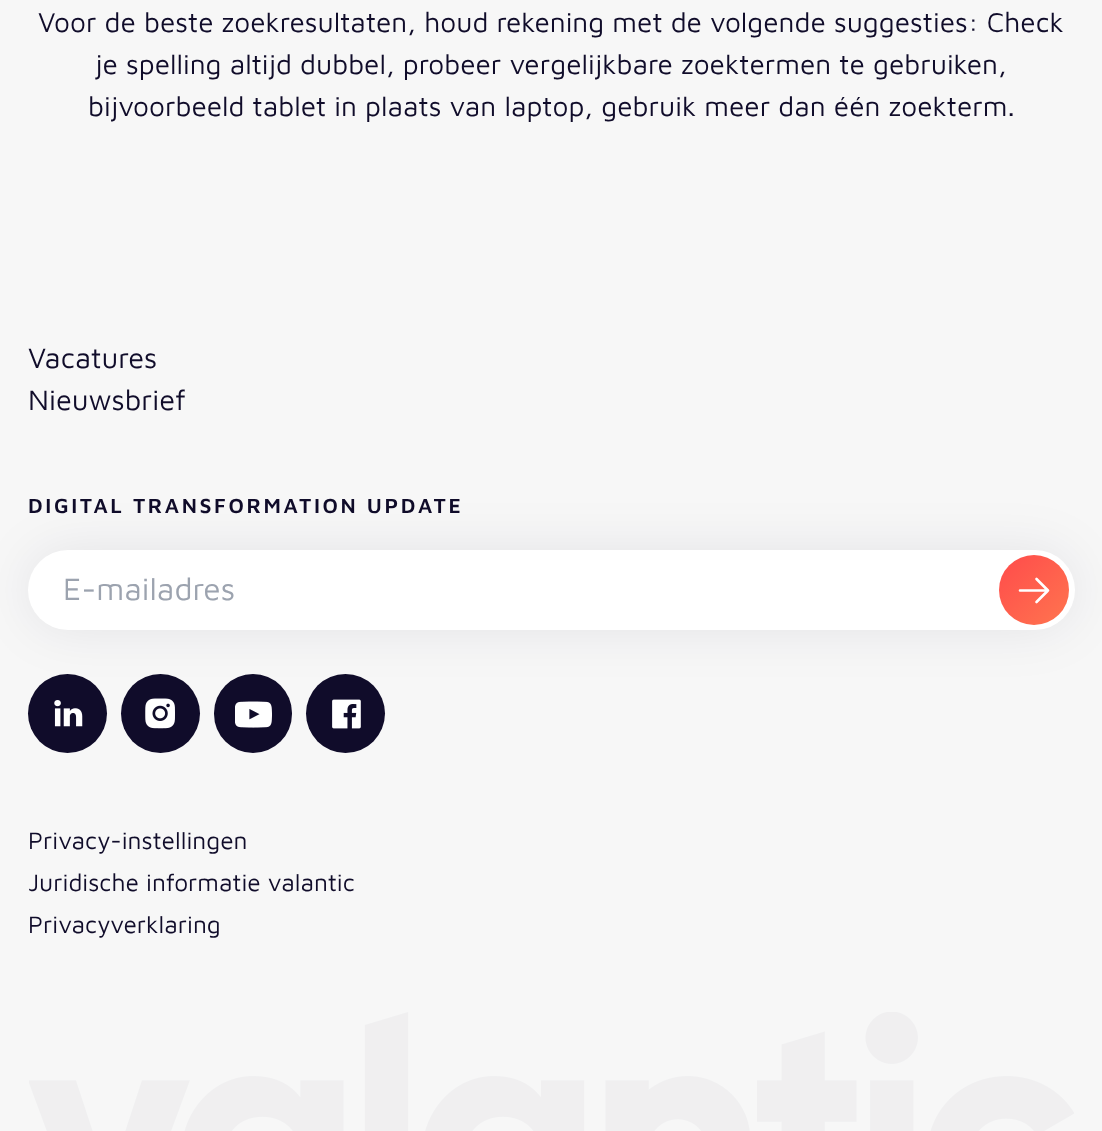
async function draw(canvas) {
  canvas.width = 1102;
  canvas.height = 1131;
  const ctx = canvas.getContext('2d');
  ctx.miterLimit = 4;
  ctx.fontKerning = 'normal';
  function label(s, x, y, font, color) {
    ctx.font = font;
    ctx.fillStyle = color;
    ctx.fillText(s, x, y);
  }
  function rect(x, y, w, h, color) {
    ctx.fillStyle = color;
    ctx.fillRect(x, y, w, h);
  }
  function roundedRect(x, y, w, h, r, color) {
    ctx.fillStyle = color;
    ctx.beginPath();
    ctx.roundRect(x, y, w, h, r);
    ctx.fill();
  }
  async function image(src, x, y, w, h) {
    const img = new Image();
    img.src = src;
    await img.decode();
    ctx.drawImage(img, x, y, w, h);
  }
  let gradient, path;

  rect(0, 0, 1102, 1131, '#f7f7f7');
  label('Voor de beste zoekresultaten, houd rekening met de volgende suggesties: Check', 38, 32, '28px Maven Pro', '#100c2a');
  label('je spelling altijd dubbel, probeer vergelijkbare zoektermen te gebruiken,', 95, 74, '28px Maven Pro', '#100c2a');
  label('bijvoorbeeld tablet in plaats van laptop, gebruik meer dan één zoekterm.', 88, 116, '28px Maven Pro', '#100c2a');
  label('Vacatures', 28, 368, '29px Maven Pro', '#100c2a');
  label('Nieuwsbrief', 28, 410, '29px Maven Pro', '#100c2a');
  ctx.letterSpacing = '2.6px';
  label('DIGITAL TRANSFORMATION UPDATE', 28, 513, '600 21px Maven Pro', '#100c2a');
  ctx.beginPath();
  ctx.arc(67.5, 713.5, 39.5, 0, 2 * Math.PI);
  ctx.fill();
  await image('assets/img1.png', 54, 700, 29, 27);
  ctx.beginPath();
  ctx.arc(160.5, 713.5, 39.5, 0, 2 * Math.PI);
  ctx.fill();
  await image('assets/img2.png', 145, 698, 30, 31);
  roundedRect(214, 674, 78, 79, 39, '#100c2a');
  await image('assets/img3.png', 235, 701, 37, 27);
  ctx.beginPath();
  ctx.arc(345.5, 713.5, 39.5, 0, 2 * Math.PI);
  ctx.fill();
  await image('assets/img4.png', 332, 699, 29, 30);
  ctx.fillStyle = '#100c2a14';
  ctx.filter = 'blur(26px)';
  ctx.beginPath();
  ctx.roundRect(28, 550, 1047, 80, 40);
  ctx.fill();
  ctx.filter = 'none';
  roundedRect(28, 550, 1047, 80, 40, '#fff');
  ctx.letterSpacing = '0px';
  label('E-mailadres', 63, 600, '31.75px Maven Pro', '#9ca3af');
  gradient = ctx.createLinearGradient(1000, 554, 1069, 625);
  gradient.addColorStop(0, '#ff4b4b');
  gradient.addColorStop(0.98, '#ff744f');
  ctx.fillStyle = gradient;
  ctx.beginPath();
  ctx.arc(1034, 590, 35, 0, 2 * Math.PI);
  ctx.fill();
  path = new Path2D('M1020 590.5H1048M1036.5 579L1048 590.5L1036.5 602');
  ctx.strokeStyle = '#fff';
  ctx.lineWidth = 2.6;
  ctx.lineCap = 'round';
  ctx.lineJoin = 'round';
  ctx.stroke(path);
  label('Privacy-instellingen', 28, 849, '24.5px Maven Pro', '#100c2a');
  label('Juridische informatie valantic', 28, 891, '24.5px Maven Pro', '#100c2a');
  label('Privacyverklaring', 28, 933, '24.5px Maven Pro', '#100c2a');
  await image('assets/img5.png', 29, 1012, 1045, 119);
}

draw(document.querySelector('canvas'));
